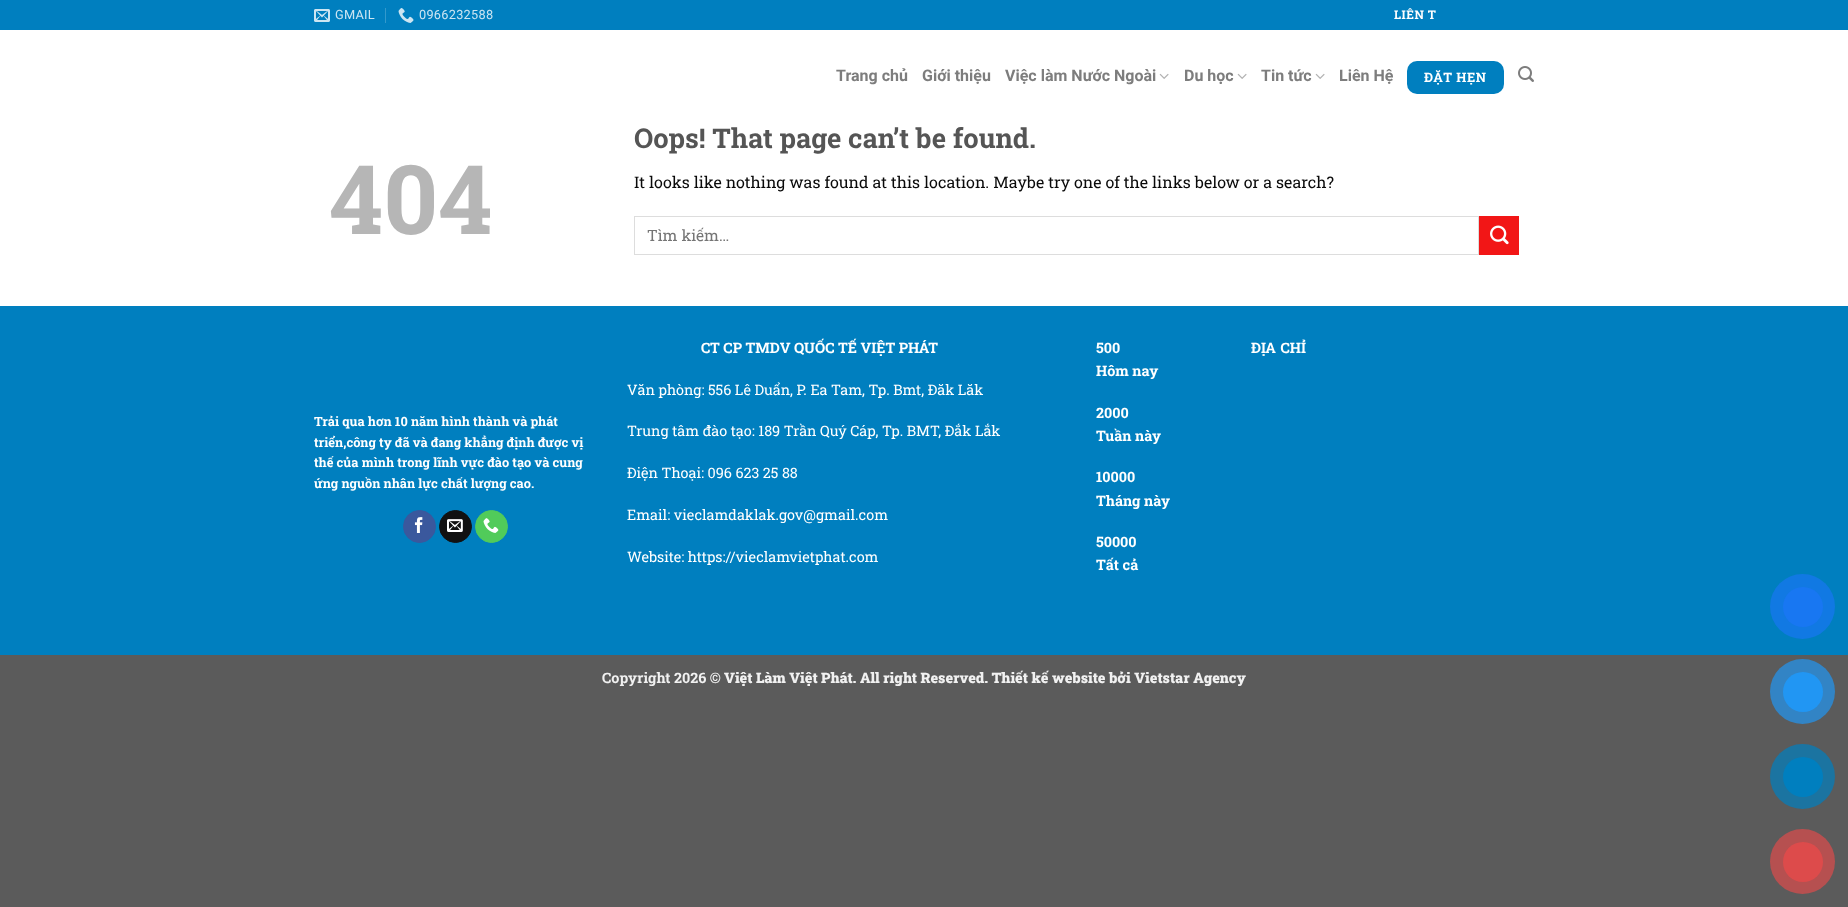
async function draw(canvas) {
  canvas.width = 1848;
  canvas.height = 907;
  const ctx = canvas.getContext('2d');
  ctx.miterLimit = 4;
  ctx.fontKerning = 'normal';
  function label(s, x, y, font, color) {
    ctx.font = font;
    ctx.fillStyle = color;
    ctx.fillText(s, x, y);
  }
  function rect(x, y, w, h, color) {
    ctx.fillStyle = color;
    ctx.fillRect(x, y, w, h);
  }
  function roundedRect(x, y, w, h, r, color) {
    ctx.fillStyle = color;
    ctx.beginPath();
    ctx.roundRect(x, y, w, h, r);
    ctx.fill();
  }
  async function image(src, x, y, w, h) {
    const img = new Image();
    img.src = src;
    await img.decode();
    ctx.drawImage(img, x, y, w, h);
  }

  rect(0, 0, 1848, 907, '#5b5b5b');
  rect(0, 30, 1848, 276, '#fff');
  rect(0, 0, 1848, 30, '#007fbf');
  await image('assets/img1.png', 314, 9, 16, 13);
  ctx.letterSpacing = '0.25px';
  label('GMAIL', 335, 19, '12.8px Roboto', '#cce5f2');
  rect(385, 8, 1, 15, '#39c');
  await image('assets/img2.png', 398, 8, 16, 15);
  label('0966232588', 419, 19, '12.8px Roboto', '#cce5f2');
  ctx.letterSpacing = '0.5px';
  label('LIÊN T', 1394, 19, 'bold 12px Roboto Slab', '#fff');
  ctx.letterSpacing = '0px';
  label('Trang chủ', 836, 81, 'bold 16px Roboto', '#7d7d7d');
  label('Giới thiệu', 922, 81, 'bold 16px Roboto', '#7d7d7d');
  label('Việc làm Nước Ngoài', 1005, 81, 'bold 16px Roboto', '#7d7d7d');
  await image('assets/img3.png', 1159, 73, 10, 6);
  label('Du học', 1184, 81, 'bold 16px Roboto', '#7d7d7d');
  await image('assets/img3.png', 1237, 73, 10, 6);
  label('Tin tức', 1261, 81, 'bold 16px Roboto', '#7d7d7d');
  await image('assets/img3.png', 1315, 73, 10, 6);
  label('Liên Hệ', 1339, 81, 'bold 16px Roboto', '#7d7d7d');
  roundedRect(1407, 61, 97, 33, 10, '#007fbf');
  ctx.letterSpacing = '0.5px';
  label('ĐẶT HẸN', 1424, 82, 'bold 13px Roboto Slab', '#fff');
  await image('assets/img4.png', 1518, 66, 16, 16);
  ctx.letterSpacing = '0px';
  label('404', 329, 234, 'bold 96px Roboto Slab', '#b6b6b6');
  label('Oops! That page can’t be found.', 634, 148, 'bold 27.25px Roboto Slab', '#555');
  label('It looks like nothing was found at this location. Maybe try one of the links below or a search?', 634, 188, '16px Roboto Slab', '#0a0a0a');
  ctx.strokeStyle = '#ddd';
  ctx.strokeRect(634.5, 216.5, 844, 38);
  label('Tìm kiếm…', 647, 241, '15.5px Roboto Slab', '#757575');
  rect(1479, 216, 40, 39, '#f21616');
  await image('assets/img5.png', 1490, 225, 19, 20);
  rect(0, 306, 1848, 349, '#007fbf');
  label('Trải qua hơn 10 năm hình thành và phát', 314, 426, 'bold 12.8px Roboto Slab', '#fff');
  label('triển,công ty đã và đang khẳng định được vị', 314, 447, 'bold 12.8px Roboto Slab', '#fff');
  label('thế của mình trong lĩnh vực đào tạo và cung', 314, 467, 'bold 12.8px Roboto Slab', '#fff');
  label('ứng nguồn nhân lực chất lượng cao.', 314, 488, 'bold 12.8px Roboto Slab', '#fff');
  ctx.fillStyle = '#3a589d';
  ctx.beginPath();
  ctx.arc(419.5, 526.5, 16, 0, 2 * Math.PI);
  ctx.fill();
  ctx.strokeStyle = '#3a589d';
  ctx.stroke();
  await image('assets/img6.png', 414, 517, 9, 16);
  ctx.fillStyle = '#111';
  ctx.beginPath();
  ctx.arc(455.5, 526.5, 16, 0, 2 * Math.PI);
  ctx.fill();
  ctx.strokeStyle = '#111';
  ctx.stroke();
  await image('assets/img7.png', 447, 519, 16, 13);
  ctx.fillStyle = '#51cb5a';
  ctx.beginPath();
  ctx.arc(491.5, 526.5, 16, 0, 2 * Math.PI);
  ctx.fill();
  ctx.strokeStyle = '#51cb5a';
  ctx.stroke();
  await image('assets/img8.png', 483, 518, 16, 15);
  label('CT CP TMDV QUỐC TẾ VIỆT PHÁT', 701, 353, 'bold 14.4px Roboto Slab', '#fff');
  label('Văn phòng: 556 Lê Duẩn, P. Ea Tam, Tp. Bmt, Đăk Lăk', 627, 395, '14.4px Roboto Slab', '#fff');
  label('Trung tâm đào tạo: 189 Trần Quý Cáp, Tp. BMT, Đắk Lắk', 627, 436, '14.4px Roboto Slab', '#fff');
  label('Điện Thoại: 096 623 25 88', 627, 478, '14.4px Roboto Slab', '#fff');
  label('Email: vieclamdaklak.gov@gmail.com', 627, 520, '14.4px Roboto Slab', '#fff');
  label('Website: https://vieclamvietphat.com', 627, 562, '14.4px Roboto Slab', '#fff');
  label('500', 1096, 353, 'bold 14.4px Roboto Slab', '#fff');
  label('Hôm nay', 1096, 376, 'bold 14.4px Roboto Slab', '#fff');
  label('2000', 1096, 418, 'bold 14.4px Roboto Slab', '#fff');
  label('Tuần này', 1096, 441, 'bold 14.4px Roboto Slab', '#fff');
  label('10000', 1096, 482, 'bold 14.4px Roboto Slab', '#fff');
  label('Tháng này', 1096, 506, 'bold 14.4px Roboto Slab', '#fff');
  label('50000', 1096, 547, 'bold 14.4px Roboto Slab', '#fff');
  label('Tất cả', 1096, 570, 'bold 14.4px Roboto Slab', '#fff');
  ctx.wordSpacing = '1px';
  label('ĐỊA CHỈ', 1251, 353, 'bold 14.4px Roboto Slab', '#fff');
  ctx.wordSpacing = '0px';
  label('Copyright 2026 ©', 602, 683, 'bold 14.4px Roboto Slab', '#f1f1f1');
  label('Việt Làm Việt Phát. All right Reserved. Thiết kế website bởi Vietstar Agency', 724, 683, '900 14.4px Roboto Slab', '#f1f1f1');
  ctx.fillStyle = '#1179e3';
  ctx.beginPath();
  ctx.arc(1802.5, 606.5, 32.5, 0, 2 * Math.PI);
  ctx.fill();
  ctx.fillStyle = '#1877f2';
  ctx.beginPath();
  ctx.arc(1803, 607, 20, 0, 2 * Math.PI);
  ctx.fill();
  ctx.fillStyle = '#3284c5';
  ctx.beginPath();
  ctx.arc(1802.5, 691.5, 32.5, 0, 2 * Math.PI);
  ctx.fill();
  ctx.fillStyle = '#2196f3';
  ctx.beginPath();
  ctx.arc(1803, 692, 20, 0, 2 * Math.PI);
  ctx.fill();
  ctx.fillStyle = '#1b74a1';
  ctx.beginPath();
  ctx.arc(1802.5, 776.5, 32.5, 0, 2 * Math.PI);
  ctx.fill();
  ctx.fillStyle = '#007fbf';
  ctx.beginPath();
  ctx.arc(1803, 777, 20, 0, 2 * Math.PI);
  ctx.fill();
  ctx.fillStyle = '#b65050';
  ctx.beginPath();
  ctx.arc(1802.5, 861.5, 32.5, 0, 2 * Math.PI);
  ctx.fill();
  ctx.fillStyle = '#dd4b4b';
  ctx.beginPath();
  ctx.arc(1803, 862, 20, 0, 2 * Math.PI);
  ctx.fill();
}

draw(document.querySelector('canvas'));
